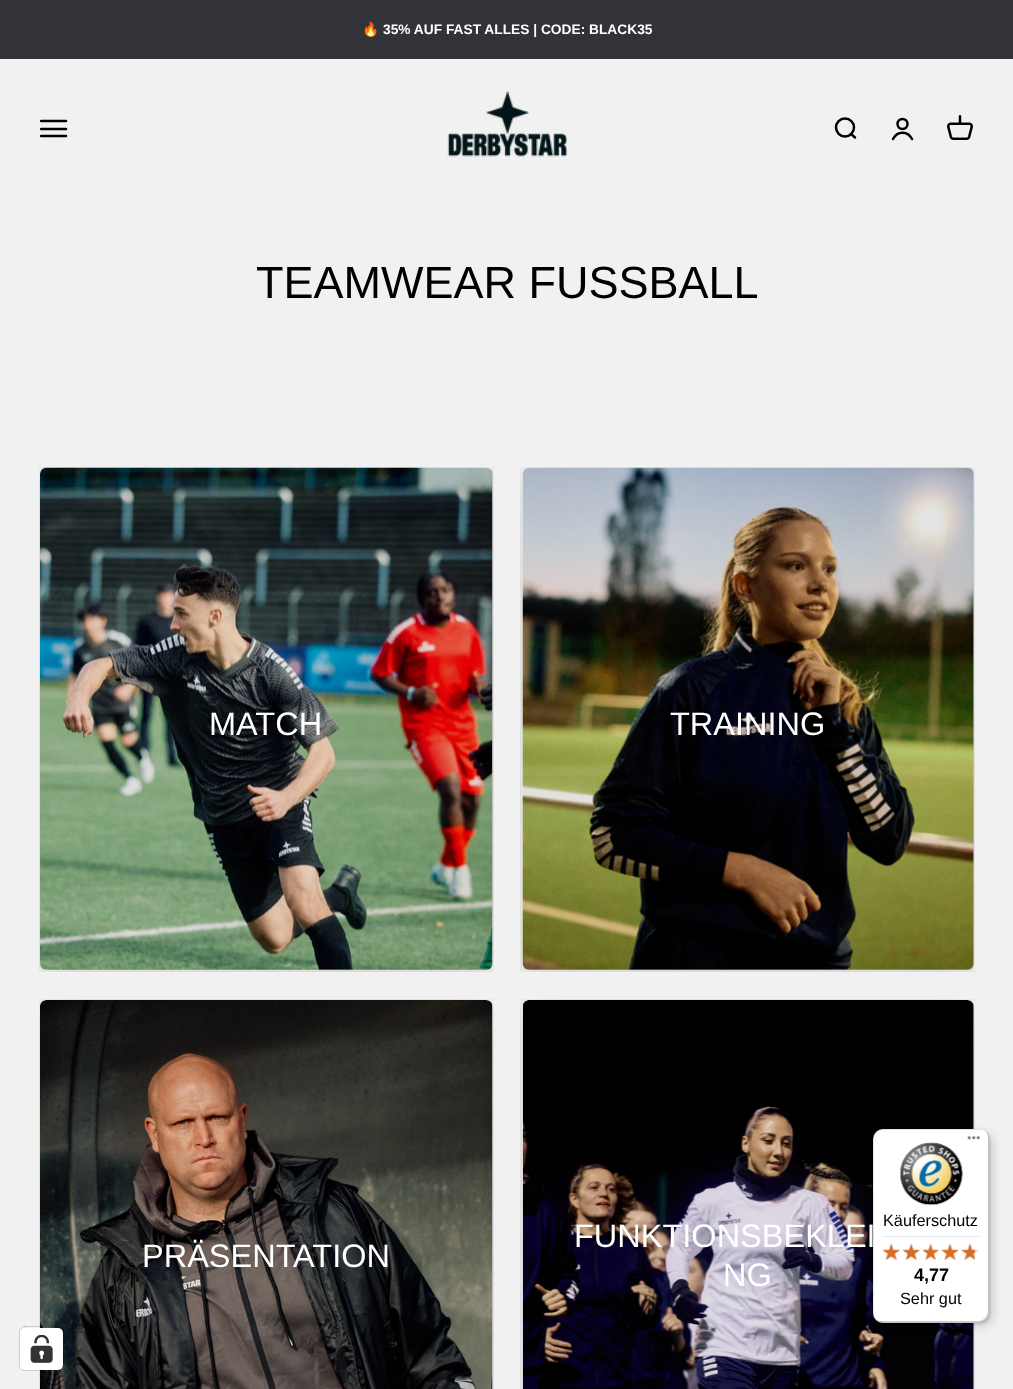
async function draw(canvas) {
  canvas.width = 1013;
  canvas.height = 1389;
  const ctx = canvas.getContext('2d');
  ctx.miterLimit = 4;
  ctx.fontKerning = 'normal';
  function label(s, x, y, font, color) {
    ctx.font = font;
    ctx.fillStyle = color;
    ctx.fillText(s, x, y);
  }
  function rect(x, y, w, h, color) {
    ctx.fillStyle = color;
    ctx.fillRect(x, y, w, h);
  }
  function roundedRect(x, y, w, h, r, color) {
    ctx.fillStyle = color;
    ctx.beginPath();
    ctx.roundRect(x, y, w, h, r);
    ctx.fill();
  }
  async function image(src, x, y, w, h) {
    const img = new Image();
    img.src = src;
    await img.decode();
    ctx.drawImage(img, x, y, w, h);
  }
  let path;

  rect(0, 0, 1013, 1389, '#f1f1f1');
  rect(0, 0, 1013, 59, '#313338');
  label('🔥', 362, 34, 'bold 13.75px Noto Color Emoji', '#fff');
  label('35% AUF FAST ALLES | CODE: BLACK35', 383, 34, 'bold 13.75px Liberation Sans', '#fff');
  ctx.save();
  ctx.beginPath();
  ctx.rect(40, 115, 28, 28);
  ctx.clip();
  path = new Path2D('M41 121H66M41 129H66M41 136H66');
  ctx.strokeStyle = '#000';
  ctx.lineWidth = 2.5;
  ctx.lineCap = 'round';
  ctx.stroke(path);
  ctx.restore();
  await image('assets/img1.png', 447, 91, 121, 66);
  ctx.beginPath();
  ctx.arc(845, 127.5, 9, 0, 2 * Math.PI);
  ctx.strokeStyle = '#000';
  ctx.lineWidth = 2.5;
  ctx.stroke();
  path = new Path2D('M851 134L855 137.5');
  ctx.lineCap = 'round';
  ctx.lineJoin = 'round';
  ctx.stroke(path);
  ctx.beginPath();
  ctx.arc(902.5, 124, 5, 0, 2 * Math.PI);
  ctx.stroke();
  path = new Path2D('M893 139C897 130.5 908 130.5 912 139');
  ctx.lineJoin = 'miter';
  ctx.stroke(path);
  await image('assets/img2.png', 947, 115, 26, 25);
  label('TEAMWEAR FUSSBALL', 256, 298, '45px Liberation Sans', '#000');
  await image('assets/img3.png', 39, 467, 455, 505);
  roundedRect(40, 468, 453, 502, 6, '#0000001a');
  label('MATCH', 209, 735, '32.5px Liberation Sans', '#fff');
  await image('assets/img4.png', 520, 467, 455, 505);
  roundedRect(523, 468, 451, 502, 6, '#0000001a');
  label('TRAINING', 670, 735, '32.5px Liberation Sans', '#fff');
  await image('assets/img5.png', 39, 999, 455, 390);
  roundedRect(40, 1000, 453, 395, 6, '#0000001a');
  label('PRÄSENTATION', 142, 1267, '32.5px Liberation Sans', '#fff');
  await image('assets/img6.png', 520, 999, 455, 390);
  roundedRect(523, 1000, 451, 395, 6, '#0000001a');
  label('FUNKTIONSBEKLEI', 574, 1247, '32.5px Liberation Sans', '#fff');
  label('NG', 723, 1286, '32.5px Liberation Sans', '#fff');
  ctx.fillStyle = '#00000026';
  ctx.filter = 'blur(5px)';
  ctx.beginPath();
  ctx.roundRect(876, 1133, 117, 193, 10);
  ctx.fill();
  ctx.filter = 'none';
  ctx.filter = 'blur(1px)';
  ctx.beginPath();
  ctx.roundRect(874, 1130, 116, 194, 10);
  ctx.fill();
  ctx.filter = 'none';
  roundedRect(873, 1129, 116, 194, 10, '#fff');
  ctx.fillStyle = '#0000001a';
  path = new Path2D('M884 1130H980C982 1130 984 1130 985 1131C984 1130 981 1129 979 1129H883C877 1129 873 1133 873 1139V1313C873 1316 874 1319 877 1321C875 1319 874 1316 874 1314V1140C874 1134 878 1130 884 1130Z');
  ctx.fill(path);
  ctx.fillStyle = '#00000033';
  path = new Path2D('M875 1319C877 1321 880 1323 883 1323H979C985 1323 989 1319 989 1313V1139C989 1136 988 1133 986 1131C987 1133 988 1135 988 1138V1311C988 1317 983 1321 978 1321H881C879 1321 877 1320 875 1319Z');
  ctx.fill(path);
  ctx.fillStyle = '#32323233';
  path = new Path2D('M875 1320C877 1322 880 1323 883 1323H979C985 1323 989 1319 989 1313V1139C989 1137 988 1134 987 1133C988 1134 988 1136 988 1138V1312C988 1317 984 1322 978 1322H882C879 1322 877 1321 875 1320Z');
  ctx.fill(path);
  ctx.fillStyle = '#ffffff4d';
  path = new Path2D('M875 1320C877 1322 880 1323 883 1323H979C985 1323 989 1319 989 1313V1139C989 1136 988 1133 985 1131C987 1133 988 1136 988 1138V1312C988 1317 984 1322 978 1322H882C879 1322 877 1321 875 1320Z');
  ctx.fill(path);
  await image('assets/img7.png', 967, 1136, 13, 4);
  await image('assets/img8.png', 900, 1142, 63, 64);
  label('Käuferschutz', 883, 1226, '16.25px Liberation Sans', '#000');
  rect(883, 1236, 96, 1, '#e5e5e5');
  await image('assets/img14.png', 882, 1244, 18, 16);
  await image('assets/img9.png', 882, 1243, 18, 17);
  await image('assets/img15.png', 903, 1244, 17, 16);
  await image('assets/img10.png', 902, 1243, 18, 17);
  await image('assets/img16.png', 922, 1244, 17, 16);
  await image('assets/img11.png', 922, 1243, 17, 17);
  await image('assets/img17.png', 941, 1244, 18, 16);
  await image('assets/img12.png', 941, 1243, 18, 17);
  await image('assets/img18.png', 961, 1244, 18, 16);
  await image('assets/img13.png', 961, 1243, 14, 17);
  label('4,77', 914, 1281, 'bold 18px Liberation Sans', '#000');
  label('Sehr gut', 900, 1304, '16.25px Liberation Sans', '#000');
  ctx.beginPath();
  ctx.roundRect(19.5, 1326.5, 44, 44, 5.5);
  ctx.strokeStyle = '#00000026';
  ctx.lineWidth = 1;
  ctx.stroke();
  roundedRect(20, 1328, 43, 42, 5, '#fff');
  await image('assets/img19.png', 30, 1335, 23, 28);
}

draw(document.querySelector('canvas'));
